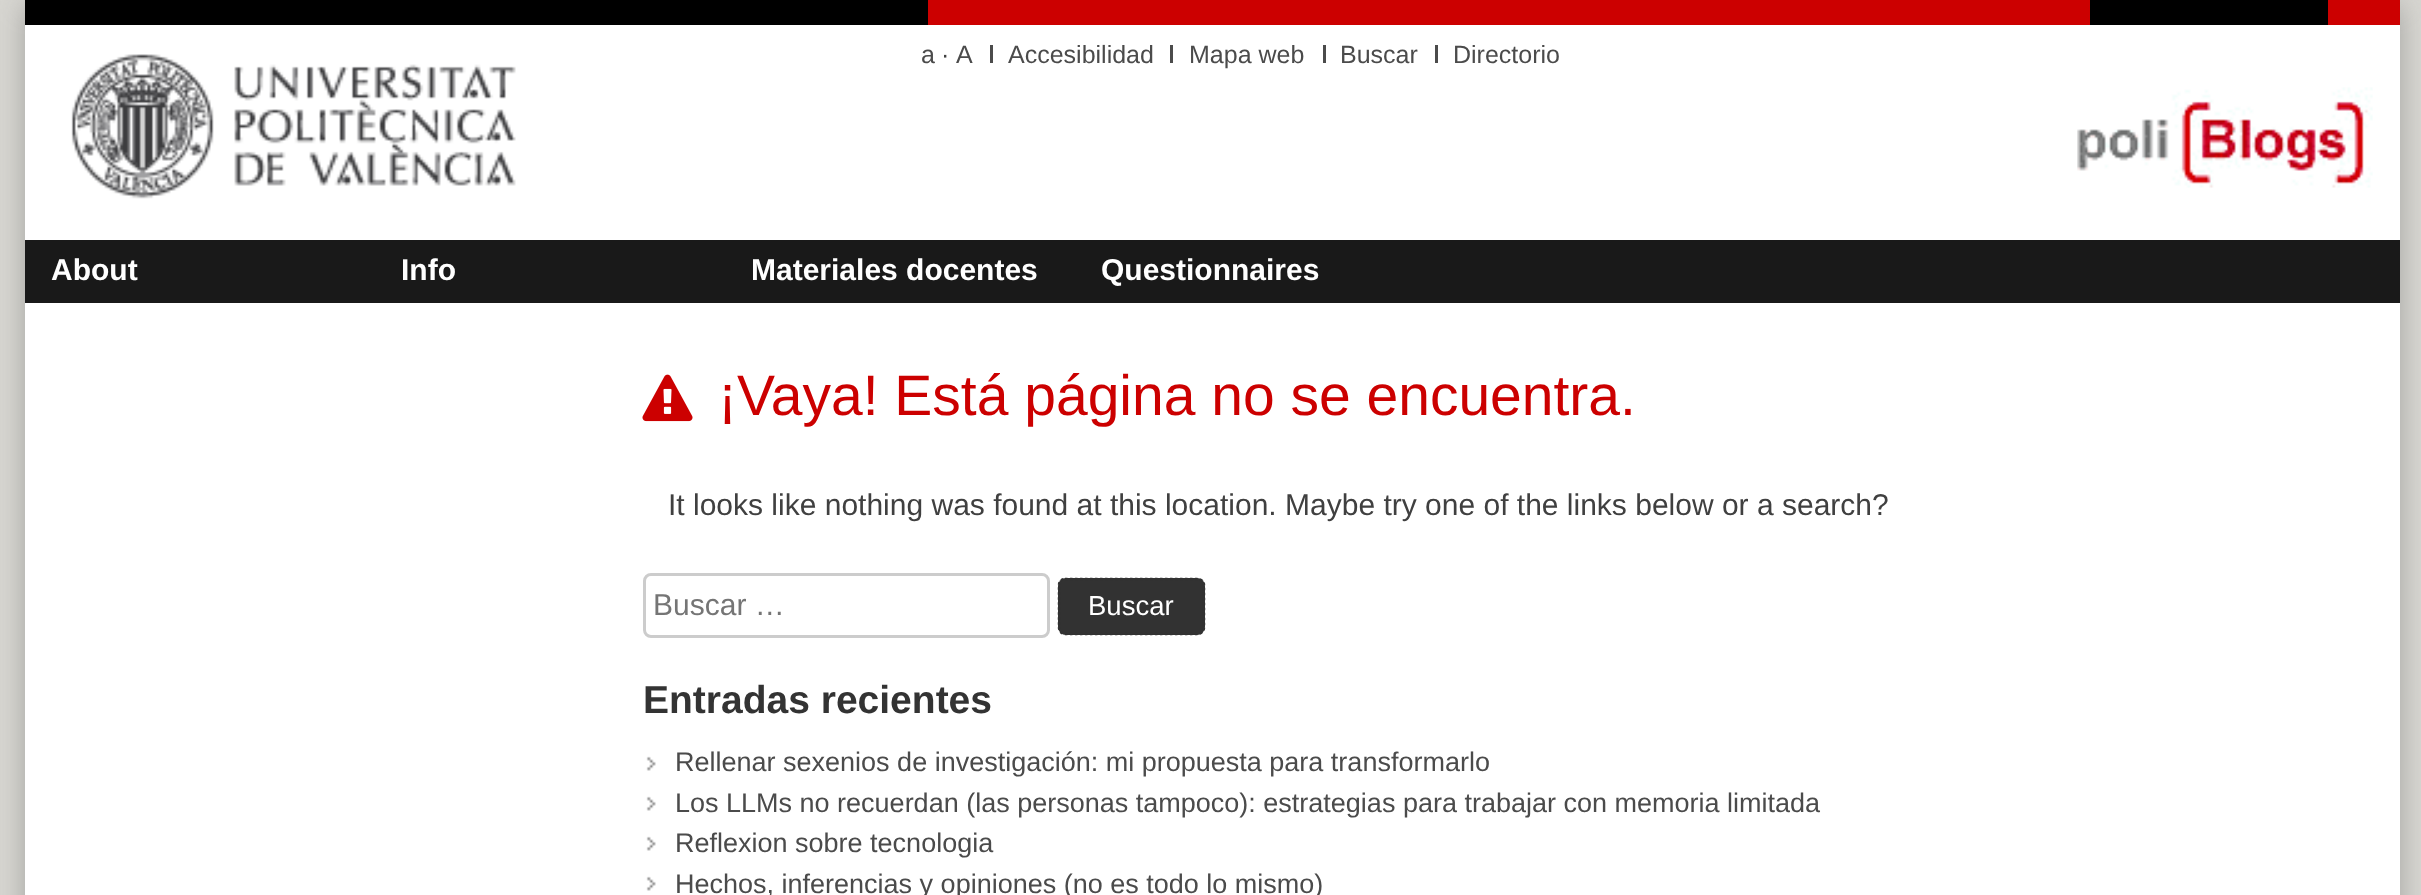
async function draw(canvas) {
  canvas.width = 2421;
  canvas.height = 895;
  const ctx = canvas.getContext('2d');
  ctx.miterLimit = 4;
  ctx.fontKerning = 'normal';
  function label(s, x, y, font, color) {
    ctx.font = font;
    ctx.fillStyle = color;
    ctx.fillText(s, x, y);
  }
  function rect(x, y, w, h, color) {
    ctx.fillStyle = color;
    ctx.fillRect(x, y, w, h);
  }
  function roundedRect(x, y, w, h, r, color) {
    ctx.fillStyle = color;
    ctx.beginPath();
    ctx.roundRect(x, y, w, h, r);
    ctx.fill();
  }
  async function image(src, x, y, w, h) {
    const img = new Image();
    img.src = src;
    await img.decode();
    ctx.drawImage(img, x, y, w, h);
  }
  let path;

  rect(0, 0, 2421, 895, '#d7d6d1');
  ctx.fillStyle = '#64646473';
  ctx.filter = 'blur(14px)';
  ctx.beginPath();
  ctx.rect(25, 5, 2375, 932);
  ctx.fill();
  ctx.filter = 'none';
  rect(25, 25, 2375, 870, '#fff');
  rect(928, 0, 1472, 25, '#c00');
  rect(25, 0, 903, 25, '#000');
  rect(2090, 0, 238, 25, '#000');
  await image('assets/img1.png', 71, 54, 445, 145);
  label('a', 921, 63, '25px Liberation Sans', '#4b4b4b');
  label('·', 941, 63, '25px Liberation Sans', '#404040');
  label('A', 956, 63, '25px Liberation Sans', '#4b4b4b');
  rect(990, 45, 3, 18, '#4b4b4b');
  label('Accesibilidad', 1008, 63, '25px Liberation Sans', '#4b4b4b');
  rect(1170, 45, 3, 18, '#4b4b4b');
  label('Mapa web', 1189, 63, '25px Liberation Sans', '#4b4b4b');
  rect(1323, 45, 3, 18, '#4b4b4b');
  label('Buscar', 1340, 63, '25px Liberation Sans', '#4b4b4b');
  rect(1435, 45, 3, 18, '#4b4b4b');
  label('Directorio', 1453, 63, '25px Liberation Sans', '#4b4b4b');
  await image('assets/img2.png', 2077, 87, 296, 101);
  rect(25, 240, 2375, 63, '#191919');
  label('About', 51, 280, 'bold 30px Liberation Sans', '#fff');
  label('Info', 401, 280, 'bold 30px Liberation Sans', '#fff');
  label('Materiales docentes', 751, 280, 'bold 30px Liberation Sans', '#fff');
  label('Questionnaires', 1101, 280, 'bold 30px Liberation Sans', '#fff');
  await image('assets/img3.png', 642, 374, 51, 48);
  label('¡Vaya! Está página no se encuentra.', 718, 415, '57px Liberation Sans', '#c00');
  label('It looks like nothing was found at this location. Maybe try one of the links below or a search?', 668, 515, '30px Liberation Sans', '#404040');
  ctx.beginPath();
  ctx.roundRect(644.5, 574.5, 404, 62, 6.5);
  ctx.strokeStyle = '#ccc';
  ctx.lineWidth = 3;
  ctx.stroke();
  label('Buscar …', 653, 615, '30px Liberation Sans', '#757575');
  roundedRect(1058, 578, 147, 57, 8, '#323232');
  path = new Path2D('M1065 579H1197.5C1201 579 1204 581.5 1204 585V627.5C1204 631 1201 634 1197.5 634H1065C1061.5 634 1059 631 1059 627.5V585C1059 581.5 1061.5 579 1065 579Z');
  ctx.strokeStyle = '#323232';
  ctx.lineWidth = 2.5;
  ctx.setLineDash([2.5, 2.5]);
  ctx.stroke(path);
  label('Buscar', 1088, 615, '27.5px Liberation Sans', '#fff');
  label('Entradas recientes', 643, 713, 'bold 39px Liberation Sans', '#333');
  await image('assets/img4.png', 646, 756, 10, 15);
  label('Rellenar sexenios de investigación: mi propuesta para transformarlo', 675, 771, '27px Liberation Sans', '#4b4b4b');
  await image('assets/img4.png', 646, 796, 10, 15);
  label('Los LLMs no recuerdan (las personas tampoco): estrategias para trabajar con memoria limitada', 675, 812, '27px Liberation Sans', '#4b4b4b');
  await image('assets/img4.png', 646, 836, 10, 15);
  label('Reflexion sobre tecnologia', 675, 852, '27px Liberation Sans', '#4b4b4b');
  await image('assets/img4.png', 646, 876, 10, 15);
  label('Hechos, inferencias y opiniones (no es todo lo mismo)', 675, 893, '27px Liberation Sans', '#4b4b4b');
}

draw(document.querySelector('canvas'));
